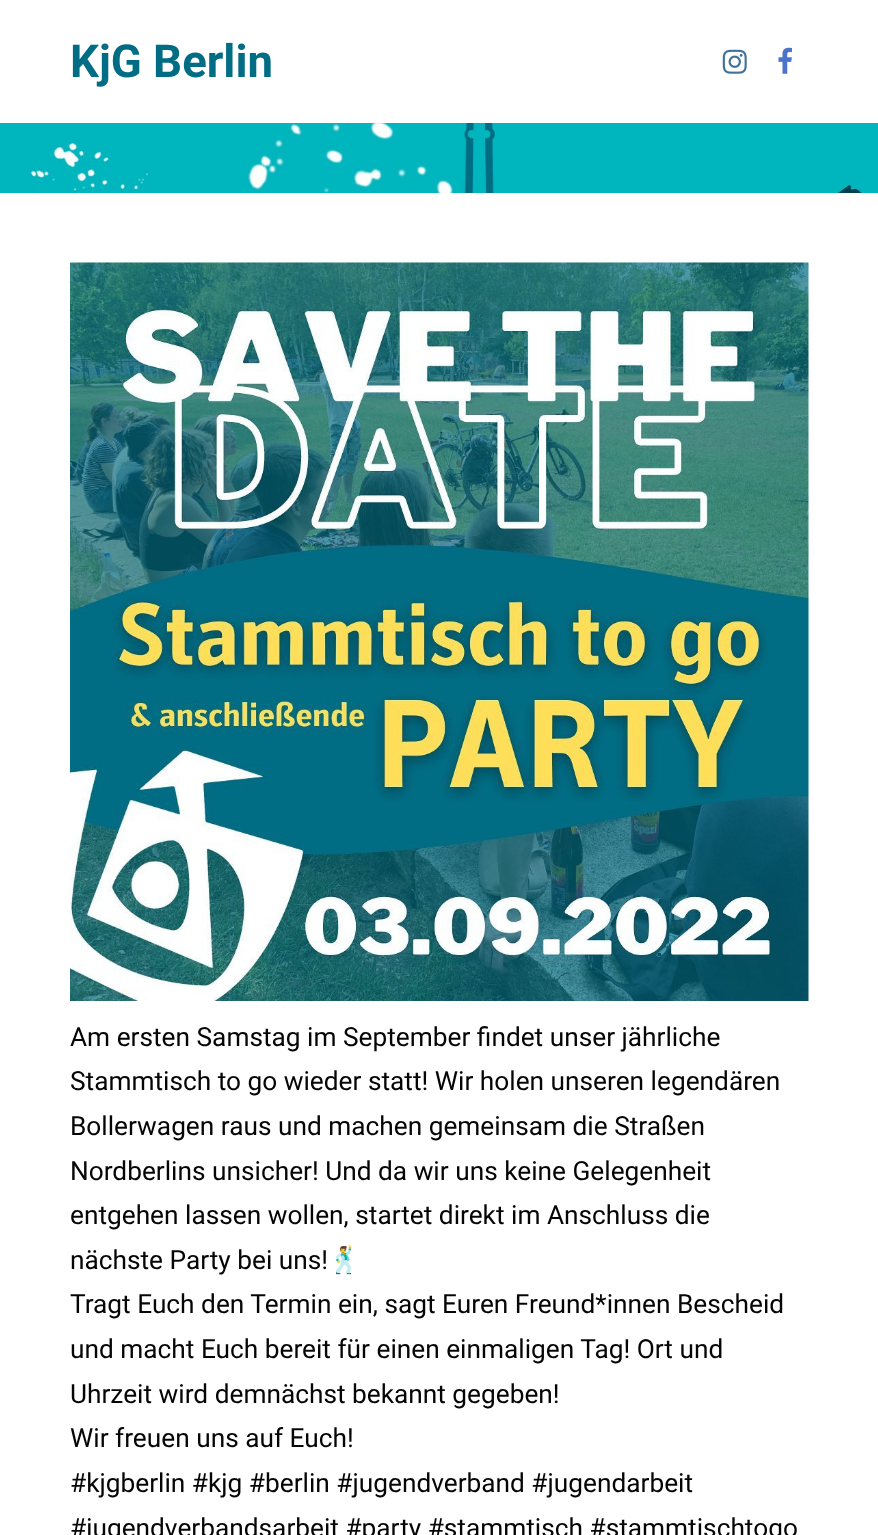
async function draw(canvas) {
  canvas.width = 878;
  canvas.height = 1535;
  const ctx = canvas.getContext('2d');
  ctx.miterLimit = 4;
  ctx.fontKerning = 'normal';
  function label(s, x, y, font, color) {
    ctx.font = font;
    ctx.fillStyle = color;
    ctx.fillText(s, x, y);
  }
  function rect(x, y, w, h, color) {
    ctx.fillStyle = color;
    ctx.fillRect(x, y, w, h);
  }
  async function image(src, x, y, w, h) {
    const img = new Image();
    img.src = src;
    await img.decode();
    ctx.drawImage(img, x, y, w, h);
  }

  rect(0, 0, 878, 1535, '#fff');
  label('KjG Berlin', 70, 77, 'bold 45.5px Roboto', '#006d84');
  await image('assets/img1.png', 722, 49, 25, 25);
  await image('assets/img2.png', 778, 47, 14, 27);
  await image('assets/img3.png', 0, 123, 878, 70);
  await image('assets/img4.png', 70, 262, 739, 739);
  label('Am ersten Samstag im September findet unser jährliche', 70, 1046, '26.25px Roboto', '#050505');
  label('Stammtisch to go wieder statt! Wir holen unseren legendären', 70, 1090, '26.25px Roboto', '#050505');
  label('Bollerwagen raus und machen gemeinsam die Straßen', 70, 1135, '26.25px Roboto', '#050505');
  label('Nordberlins unsicher! Und da wir uns keine Gelegenheit', 70, 1180, '26.25px Roboto', '#050505');
  label('entgehen lassen wollen, startet direkt im Anschluss die', 70, 1224, '26.25px Roboto', '#050505');
  label('nächste Party bei uns!', 70, 1269, '26.25px Roboto', '#050505');
  label('🕺', 328, 1269, '26.25px Noto Color Emoji', '#050505');
  label('Tragt Euch den Termin ein, sagt Euren Freund*innen Bescheid', 70, 1313, '26.25px Roboto', '#050505');
  label('und macht Euch bereit für einen einmaligen Tag! Ort und', 70, 1358, '26.25px Roboto', '#050505');
  label('Uhrzeit wird demnächst bekannt gegeben!', 70, 1403, '26.25px Roboto', '#050505');
  label('Wir freuen uns auf Euch!', 70, 1447, '26.25px Roboto', '#050505');
  label('#kjgberlin #kjg #berlin #jugendverband #jugendarbeit', 70, 1492, '26.25px Roboto', '#050505');
  label('#jugendverbandsarbeit #party #stammtisch #stammtischtogo', 70, 1537, '26.25px Roboto', '#050505');
}

draw(document.querySelector('canvas'));
